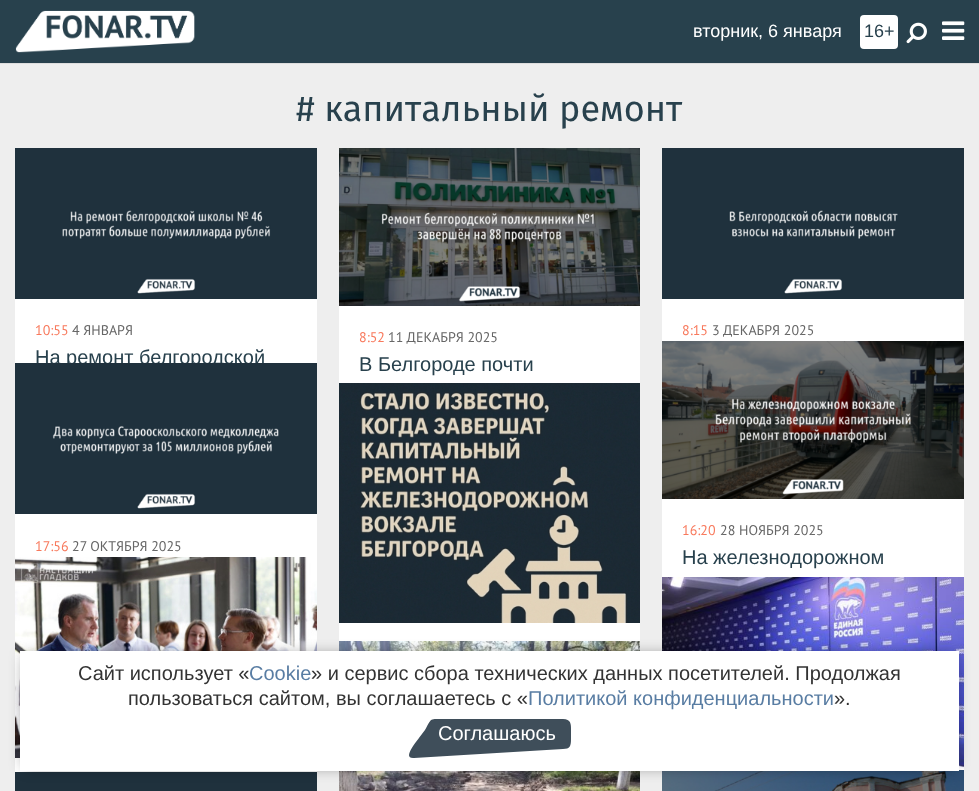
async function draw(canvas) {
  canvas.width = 979;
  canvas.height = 791;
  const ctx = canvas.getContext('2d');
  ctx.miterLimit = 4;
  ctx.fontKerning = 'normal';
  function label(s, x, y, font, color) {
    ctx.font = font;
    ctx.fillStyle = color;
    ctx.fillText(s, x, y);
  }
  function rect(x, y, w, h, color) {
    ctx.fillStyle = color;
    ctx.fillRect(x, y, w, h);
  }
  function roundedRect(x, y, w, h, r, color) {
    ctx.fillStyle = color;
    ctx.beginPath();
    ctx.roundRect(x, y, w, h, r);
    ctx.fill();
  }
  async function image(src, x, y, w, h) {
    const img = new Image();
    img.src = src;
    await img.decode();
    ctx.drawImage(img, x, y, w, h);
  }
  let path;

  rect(0, 0, 979, 791, '#eee');
  rect(0, 0, 979, 63, '#28414d');
  rect(0, 63, 979, 1, '#ddd');
  await image('assets/img1.png', 15, 10, 180, 43);
  label('вторник, 6 января', 693, 37, '18px Arimo', '#fff');
  roundedRect(860, 15, 38, 34, 4, '#fff');
  label('16+', 864, 37, '18px Arimo', '#28414d');
  await image('assets/img2.png', 906, 22, 21, 22);
  await image('assets/img3.png', 942, 21, 23, 19);
  label('# капитальный ремонт', 296, 121, '36px Fira Sans', '#28414d');
  rect(15, 299, 302, 64, '#fff');
  await image('assets/img4.png', 15, 148, 302, 151);
  label('10:55', 35, 335, '14px PT Sans', '#f8795c');
  label('4 ЯНВАРЯ', 72, 335, '14px PT Sans', '#666');
  label('На ремонт белгородской', 35, 364, '20px Arimo', '#28414d');
  rect(339, 306, 301, 77, '#fff');
  await image('assets/img5.png', 339, 148, 301, 158);
  label('8:52', 359, 342, '14px PT Sans', '#f8795c');
  label('11 ДЕКАБРЯ 2025', 388, 342, '14px PT Sans', '#666');
  label('В Белгороде почти', 359, 371, '20px Arimo', '#28414d');
  rect(662, 299, 302, 42, '#fff');
  await image('assets/img6.png', 662, 148, 302, 151);
  label('8:15', 682, 335, '14px PT Sans', '#f8795c');
  label('3 ДЕКАБРЯ 2025', 712, 335, '14px PT Sans', '#666');
  rect(15, 514, 302, 43, '#fff');
  await image('assets/img7.png', 15, 363, 302, 151);
  label('17:56', 35, 551, '14px PT Sans', '#f8795c');
  label('27 ОКТЯБРЯ 2025', 72, 551, '14px PT Sans', '#666');
  rect(339, 623, 301, 18, '#fff');
  await image('assets/img8.png', 339, 383, 301, 240);
  rect(662, 499, 302, 78, '#fff');
  await image('assets/img9.png', 662, 341, 302, 158);
  label('16:20', 682, 535, '14px PT Sans', '#f8795c');
  label('28 НОЯБРЯ 2025', 720, 535, '14px PT Sans', '#666');
  label('На железнодорожном', 682, 564, '20px Arimo', '#28414d');
  rect(15, 758, 302, 14, '#fff');
  await image('assets/img10.png', 15, 557, 302, 201);
  await image('assets/img11.png', 339, 641, 301, 150);
  await image('assets/img12.png', 662, 577, 302, 193);
  rect(15, 772, 302, 19, '#1f313d');
  await image('assets/img13.png', 662, 770, 302, 21);
  ctx.fillStyle = '#00000080';
  ctx.filter = 'blur(7.5px)';
  ctx.beginPath();
  ctx.rect(25, 656, 929, 110);
  ctx.fill();
  ctx.filter = 'none';
  rect(20, 651, 939, 120, '#fff');
  label('Сайт использует «', 78, 680, '20px Arimo', '#333');
  label('Cookie', 249, 680, '20px Arimo', '#597da3');
  label('» и сервис сбора технических данных посетителей. Продолжая', 311, 680, '20px Arimo', '#333');
  label('пользоваться сайтом, вы соглашаетесь с «', 128, 705, '20px Arimo', '#333');
  label('Политикой конфиденциальности', 528, 705, '20px Arimo', '#597da3');
  label('».', 834, 705, '20px Arimo', '#333');
  ctx.fillStyle = '#3f4e5a';
  path = new Path2D('M563 719C571 719 571 724 571 730V739C571 746 570 749 563 749L414 758C401 759 417 741 425 730C427 727 428 723 431 720C433 719 434 719 436 719Z');
  ctx.fill(path);
  label('Соглашаюсь', 438, 740, '20px Arimo', '#fff');
}

draw(document.querySelector('canvas'));
